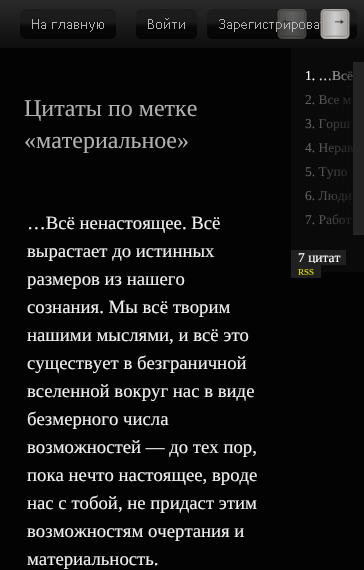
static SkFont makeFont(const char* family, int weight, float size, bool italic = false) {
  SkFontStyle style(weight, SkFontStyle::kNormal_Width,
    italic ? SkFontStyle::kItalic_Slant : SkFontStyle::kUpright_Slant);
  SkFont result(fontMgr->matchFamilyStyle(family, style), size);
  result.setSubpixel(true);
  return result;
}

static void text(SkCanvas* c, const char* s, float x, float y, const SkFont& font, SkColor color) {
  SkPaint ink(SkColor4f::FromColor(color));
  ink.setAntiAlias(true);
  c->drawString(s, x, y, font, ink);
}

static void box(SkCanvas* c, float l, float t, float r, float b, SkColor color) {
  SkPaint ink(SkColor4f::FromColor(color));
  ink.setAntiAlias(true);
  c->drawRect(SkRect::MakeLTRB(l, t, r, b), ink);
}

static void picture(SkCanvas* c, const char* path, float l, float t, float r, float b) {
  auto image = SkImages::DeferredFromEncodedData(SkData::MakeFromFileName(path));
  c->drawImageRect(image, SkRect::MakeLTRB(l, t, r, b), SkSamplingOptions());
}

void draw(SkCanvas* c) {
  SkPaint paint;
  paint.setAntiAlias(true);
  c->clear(0xff030303);
  picture(c, "img_01.png", 0, 0, 364, 48);
  picture(c, "img_02.png", 20, 9, 116, 39);
  picture(c, "img_03.png", 136, 9, 197, 39);
  picture(c, "img_04.png", 207, 9, 357, 39);
  picture(c, "img_05.png", 277, 9, 307, 39);
  picture(c, "img_06.png", 320, 9, 350, 39);
  SkFont face1 = makeFont("Liberation Serif", 400, 24);
  text(c, "Цитаты по метке", 24, 116, face1, 0xffb0b0b0);
  text(c, "«материальное»", 24, 148, face1, 0xffb0b0b0);
  box(c, 291, 48, 364, 62, 0xff0a0a0a);
  box(c, 291, 62, 353, 235, 0xff0a0a0a);
  SkFont face2 = makeFont("Liberation Serif", 400, 13.5f);
  text(c, "1. …Всё", 305, 80, face2, 0xffffffff);
  text(c, "2. Все м", 305, 104, face2, 0xff606060);
  text(c, "3. Горш", 305, 128, face2, 0xff606060);
  text(c, "4. Нерав", 305, 152, face2, 0xff606060);
  text(c, "5. Тупо", 305, 176, face2, 0xff606060);
  text(c, "6. Люди", 305, 200, face2, 0xff606060);
  text(c, "7. Работ", 305, 224, face2, 0xff606060);
  box(c, 353, 62, 364, 235, 0xff242424);
  picture(c, "img_07.png", 318, 71, 353, 225);
  box(c, 291, 235, 364, 272, 0xff0a0a0a);
  box(c, 291, 250, 346, 265, 0xff202020);
  text(c, "7 цитат", 298, 262, face2, 0xffffffff);
  box(c, 291, 263, 321, 278, 0xff202020);
  SkFont face3 = makeFont("Liberation Serif", 400, 9);
  text(c, "RSS", 298, 275, face3, 0xffdddd00);
  SkFont face4 = makeFont("Liberation Serif", 400, 18.75f);
  text(c, "…Всё ненастоящее. Всё", 27, 229, face4, 0xfff0f0f0);
  text(c, "вырастает до истинных", 27, 257, face4, 0xfff0f0f0);
  text(c, "размеров из нашего", 27, 285, face4, 0xfff0f0f0);
  text(c, "сознания. Мы всё творим", 27, 313, face4, 0xfff0f0f0);
  text(c, "нашими мыслями, и всё это", 27, 341, face4, 0xfff0f0f0);
  text(c, "существует в безграничной", 27, 369, face4, 0xfff0f0f0);
  text(c, "вселенной вокруг нас в виде", 27, 397, face4, 0xfff0f0f0);
  text(c, "безмерного числа", 27, 425, face4, 0xfff0f0f0);
  text(c, "возможностей — до тех пор,", 27, 453, face4, 0xfff0f0f0);
  text(c, "пока нечто настоящее, вроде", 27, 481, face4, 0xfff0f0f0);
  text(c, "нас с тобой, не придаст этим", 27, 509, face4, 0xfff0f0f0);
  text(c, "возможностям очертания и", 27, 537, face4, 0xfff0f0f0);
  text(c, "материальность.", 27, 565, face4, 0xfff0f0f0);
}
